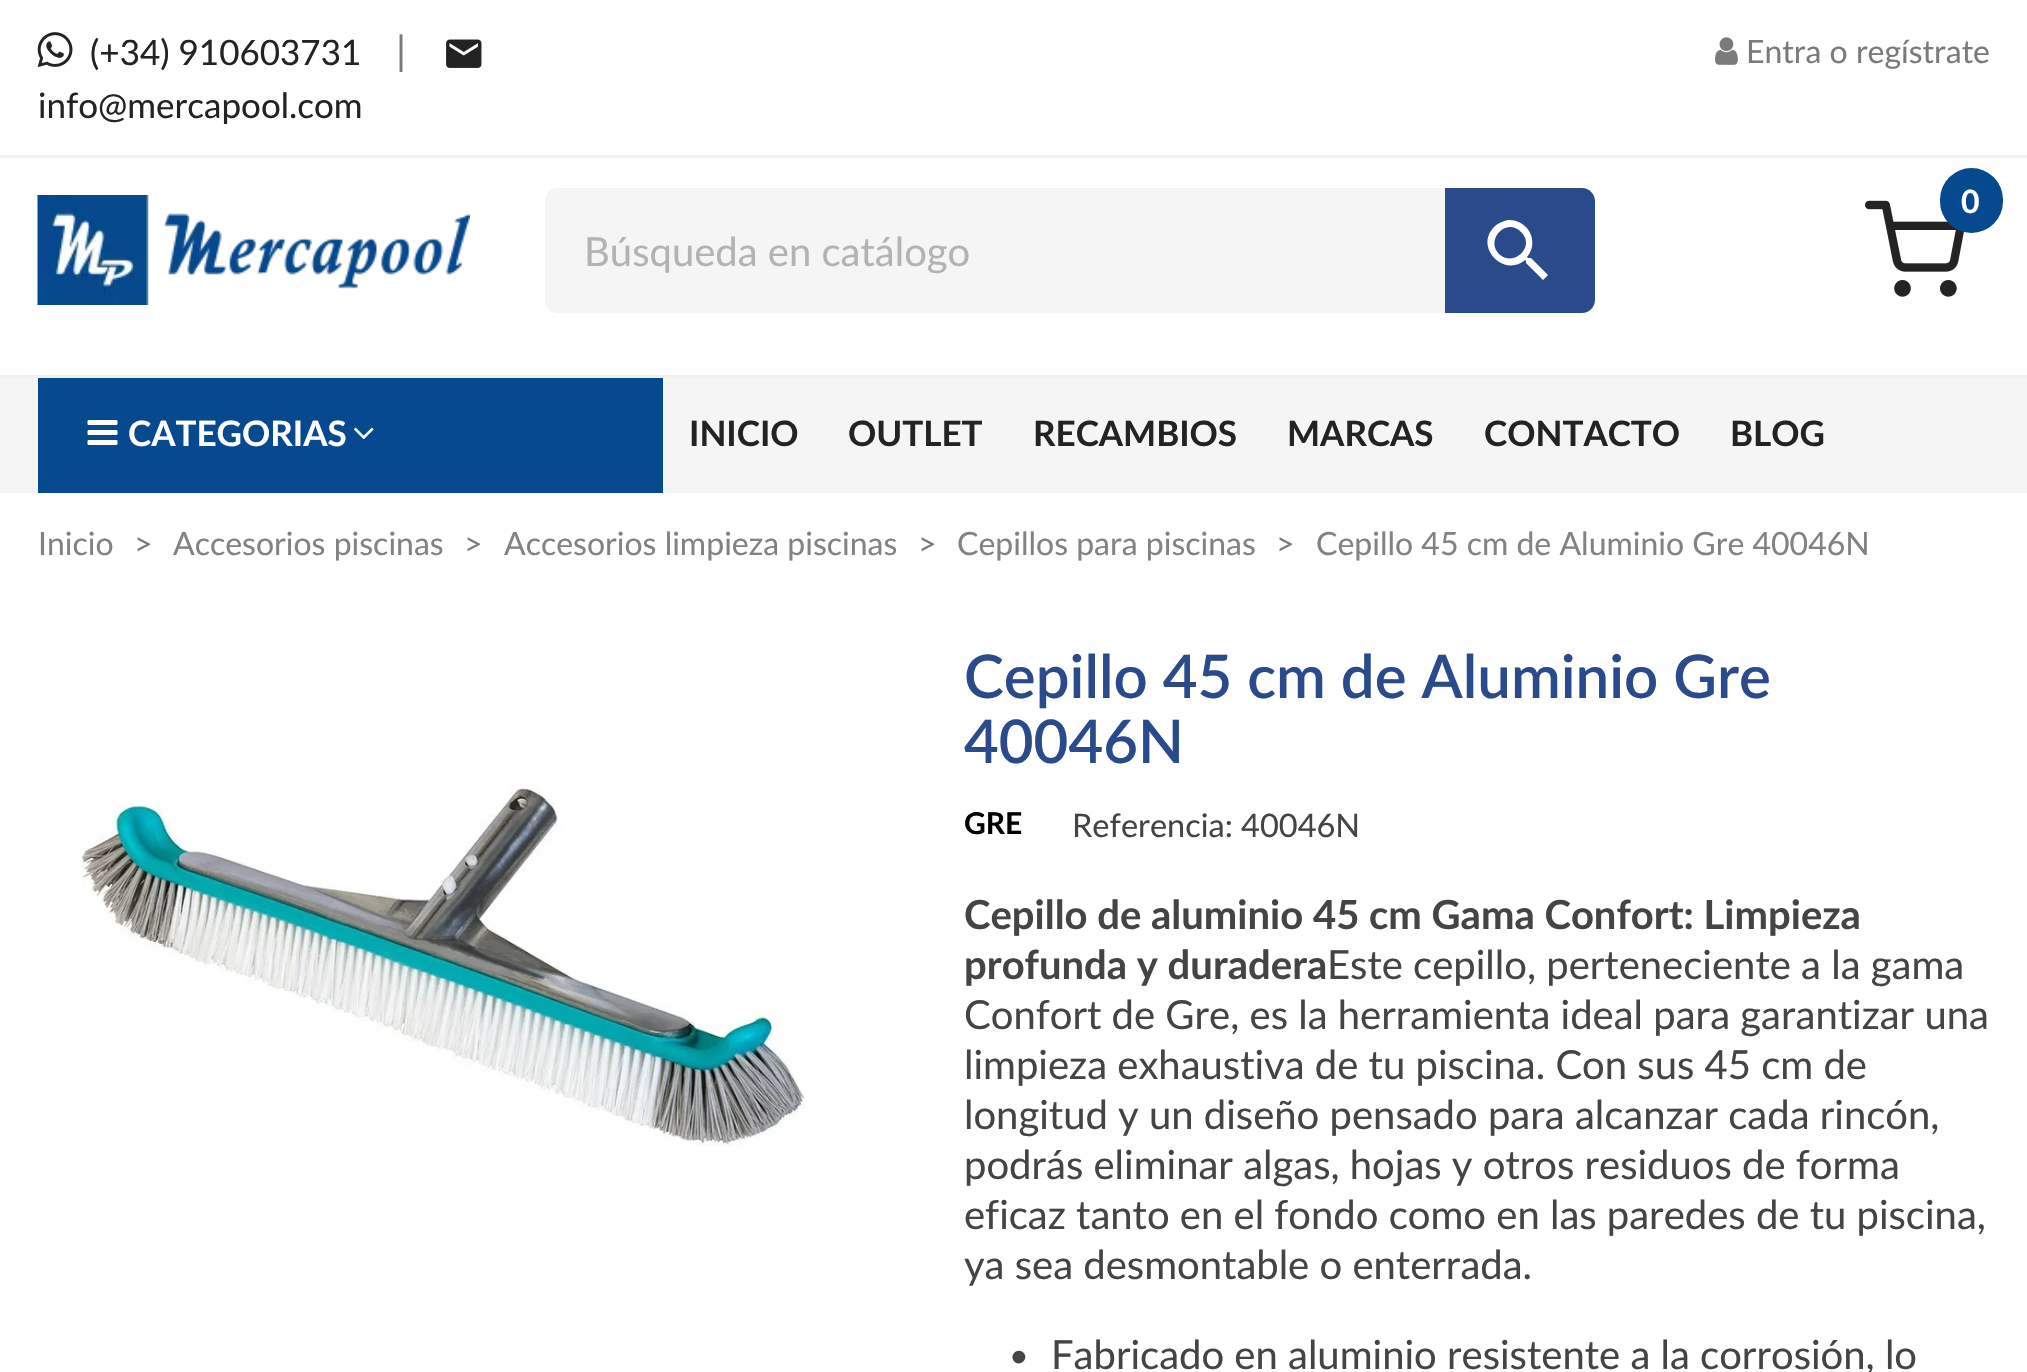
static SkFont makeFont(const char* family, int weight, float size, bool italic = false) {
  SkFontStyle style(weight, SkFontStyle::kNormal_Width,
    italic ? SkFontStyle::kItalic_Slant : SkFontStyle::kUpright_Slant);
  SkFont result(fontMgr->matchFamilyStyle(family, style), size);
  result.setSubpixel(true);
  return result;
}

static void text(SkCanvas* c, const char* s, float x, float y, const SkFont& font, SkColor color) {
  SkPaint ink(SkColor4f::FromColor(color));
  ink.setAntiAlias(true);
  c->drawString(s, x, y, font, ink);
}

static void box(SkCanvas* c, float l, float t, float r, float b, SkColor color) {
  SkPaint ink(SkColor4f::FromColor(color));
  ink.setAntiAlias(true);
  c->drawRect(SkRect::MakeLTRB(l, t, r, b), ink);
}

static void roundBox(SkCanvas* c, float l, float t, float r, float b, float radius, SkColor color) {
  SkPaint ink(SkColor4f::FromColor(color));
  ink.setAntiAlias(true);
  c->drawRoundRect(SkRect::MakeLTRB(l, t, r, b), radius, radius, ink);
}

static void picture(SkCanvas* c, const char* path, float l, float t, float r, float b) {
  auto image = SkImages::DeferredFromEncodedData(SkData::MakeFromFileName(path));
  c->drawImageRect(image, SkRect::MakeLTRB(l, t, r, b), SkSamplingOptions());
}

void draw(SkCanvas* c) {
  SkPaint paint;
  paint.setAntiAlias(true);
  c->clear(0xffffffff);
  box(c, 0, 155, 2027, 158, 0xfff1f1f1);
  picture(c, "img_01.png", 37, 32, 73, 68);
  SkFont face1 = makeFont("Lato", 400, 35);
  text(c, "(+34) 910603731", 90, 65, face1, 0xff232323);
  SkFont face2 = makeFont("Lato", 400, 40);
  text(c, "|", 396, 65, face2, 0xff7a7a7a);
  picture(c, "img_02.png", 446, 39, 482, 68);
  text(c, "info@mercapool.com", 38, 118, face1, 0xff232323);
  picture(c, "img_03.png", 1715, 37, 1738, 65);
  SkFont face3 = makeFont("Lato", 400, 32);
  text(c, "Entra o regístrate", 1746, 63, face3, 0xff7a7a7a);
  box(c, 0, 375, 2027, 378, 0xfff1f1f1);
  picture(c, "img_04.png", 37, 195, 470, 305);
  picture(c, "img_05.png", 1865, 200, 1964, 297);
  roundBox(c, 1940, 168, 2003, 233, 31.5f, 0xff06498f);
  SkFont face4 = makeFont("Lato", 700, 32);
  text(c, "0", 1961, 213, face4, 0xffffffff);
  roundBox(c, 545, 188, 1595, 313, 13, 0xfff5f5f5);
  text(c, "Búsqueda en catálogo", 584, 266, face2, 0xffb3b3b3);
  paint.setColor(0xff2b4a8b);
  c->drawPath(SkPathBuilder().moveTo(1445, 188).lineTo(1582, 188).cubicTo(1589, 188, 1595, 194, 1595, 201).lineTo(1595, 300).cubicTo(1595, 307, 1589, 313, 1582, 313).lineTo(1445, 313).close().detach(), paint);
  paint.setColor(0xffffffff);
  c->drawPath(SkPathBuilder().moveTo(1499, 254).cubicTo(1514, 268, 1536, 246, 1521, 232).cubicTo(1507, 217, 1485, 239, 1499, 254).close().moveTo(1531, 258).lineTo(1548, 275).lineTo(1543, 280).lineTo(1526, 263).lineTo(1526, 261).lineTo(1525, 260).cubicTo(1504, 278, 1474, 247, 1494, 227).cubicTo(1498, 223, 1503, 221, 1508, 220).cubicTo(1528, 219, 1540, 242, 1527, 257).lineTo(1528, 258).close().detach(), paint);
  box(c, 0, 378, 2027, 493, 0xfff5f5f5);
  box(c, 38, 378, 663, 493, 0xff06498f);
  picture(c, "img_06.png", 87, 420, 118, 445);
  SkFont face5 = makeFont("Lato", 700, 35);
  text(c, "CATEGORIAS", 128, 446, face5, 0xffffffff);
  picture(c, "img_07.png", 354, 427, 374, 440);
  text(c, "INICIO", 689, 446, face5, 0xff232323);
  text(c, "OUTLET", 848, 446, face5, 0xff232323);
  text(c, "RECAMBIOS", 1033, 446, face5, 0xff232323);
  text(c, "MARCAS", 1287, 446, face5, 0xff232323);
  text(c, "CONTACTO", 1484, 446, face5, 0xff232323);
  text(c, "BLOG", 1730, 446, face5, 0xff232323);
  text(c, "Inicio", 38, 555, face3, 0xff828282);
  text(c, ">", 134, 555, face3, 0xff7a7a7a);
  text(c, "Accesorios piscinas", 173, 555, face3, 0xff828282);
  text(c, ">", 464, 555, face3, 0xff7a7a7a);
  text(c, "Accesorios limpieza piscinas", 504, 555, face3, 0xff828282);
  text(c, ">", 918, 555, face3, 0xff7a7a7a);
  text(c, "Cepillos para piscinas", 957, 555, face3, 0xff828282);
  text(c, ">", 1276, 555, face3, 0xff7a7a7a);
  text(c, "Cepillo 45 cm de Aluminio Gre 40046N", 1316, 555, face3, 0xff828282);
  picture(c, "img_08.png", 82, 784, 805, 1146);
  SkFont face6 = makeFont("Lato", 600, 60);
  text(c, "Cepillo 45 cm de Aluminio Gre", 964, 698, face6, 0xff2b4a8b);
  text(c, "40046N", 964, 763, face6, 0xff2b4a8b);
  SkFont face7 = makeFont("Lato", 700, 30);
  text(c, "GRE", 964, 834, face7, 0xff000000);
  SkFont face8 = makeFont("Lato", 400, 32.5f);
  text(c, "Referencia: 40046N", 1072, 837, face8, 0xff444444);
  SkFont face9 = makeFont("Lato", 700, 40);
  text(c, "Cepillo de aluminio 45 cm Gama Confort: Limpieza", 964, 929, face9, 0xff444444);
  text(c, "profunda y duradera", 964, 979, face9, 0xff444444);
  text(c, "Este cepillo, perteneciente a la gama", 1327, 979, face2, 0xff444444);
  text(c, "Confort de Gre, es la herramienta ideal para garantizar una", 964, 1029, face2, 0xff444444);
  text(c, "limpieza exhaustiva de tu piscina. Con sus 45 cm de", 964, 1079, face2, 0xff444444);
  text(c, "longitud y un diseño pensado para alcanzar cada rincón,", 964, 1129, face2, 0xff444444);
  text(c, "podrás eliminar algas, hojas y otros residuos de forma", 964, 1179, face2, 0xff444444);
  text(c, "eficaz tanto en el fondo como en las paredes de tu piscina,", 964, 1229, face2, 0xff444444);
  text(c, "ya sea desmontable o enterrada.", 964, 1279, face2, 0xff444444);
  paint.setColor(0xff444444);
  c->drawPath(SkPathBuilder().moveTo(1024.5f, 1354).cubicTo(1028.5f, 1361, 1017.5f, 1367.5f, 1013.5f, 1360.5f).cubicTo(1009, 1353, 1020, 1346.5f, 1024.5f, 1354).close().detach(), paint);
  text(c, "Fabricado en aluminio resistente a la corrosión, lo", 1051, 1369, face2, 0xff444444);
}
